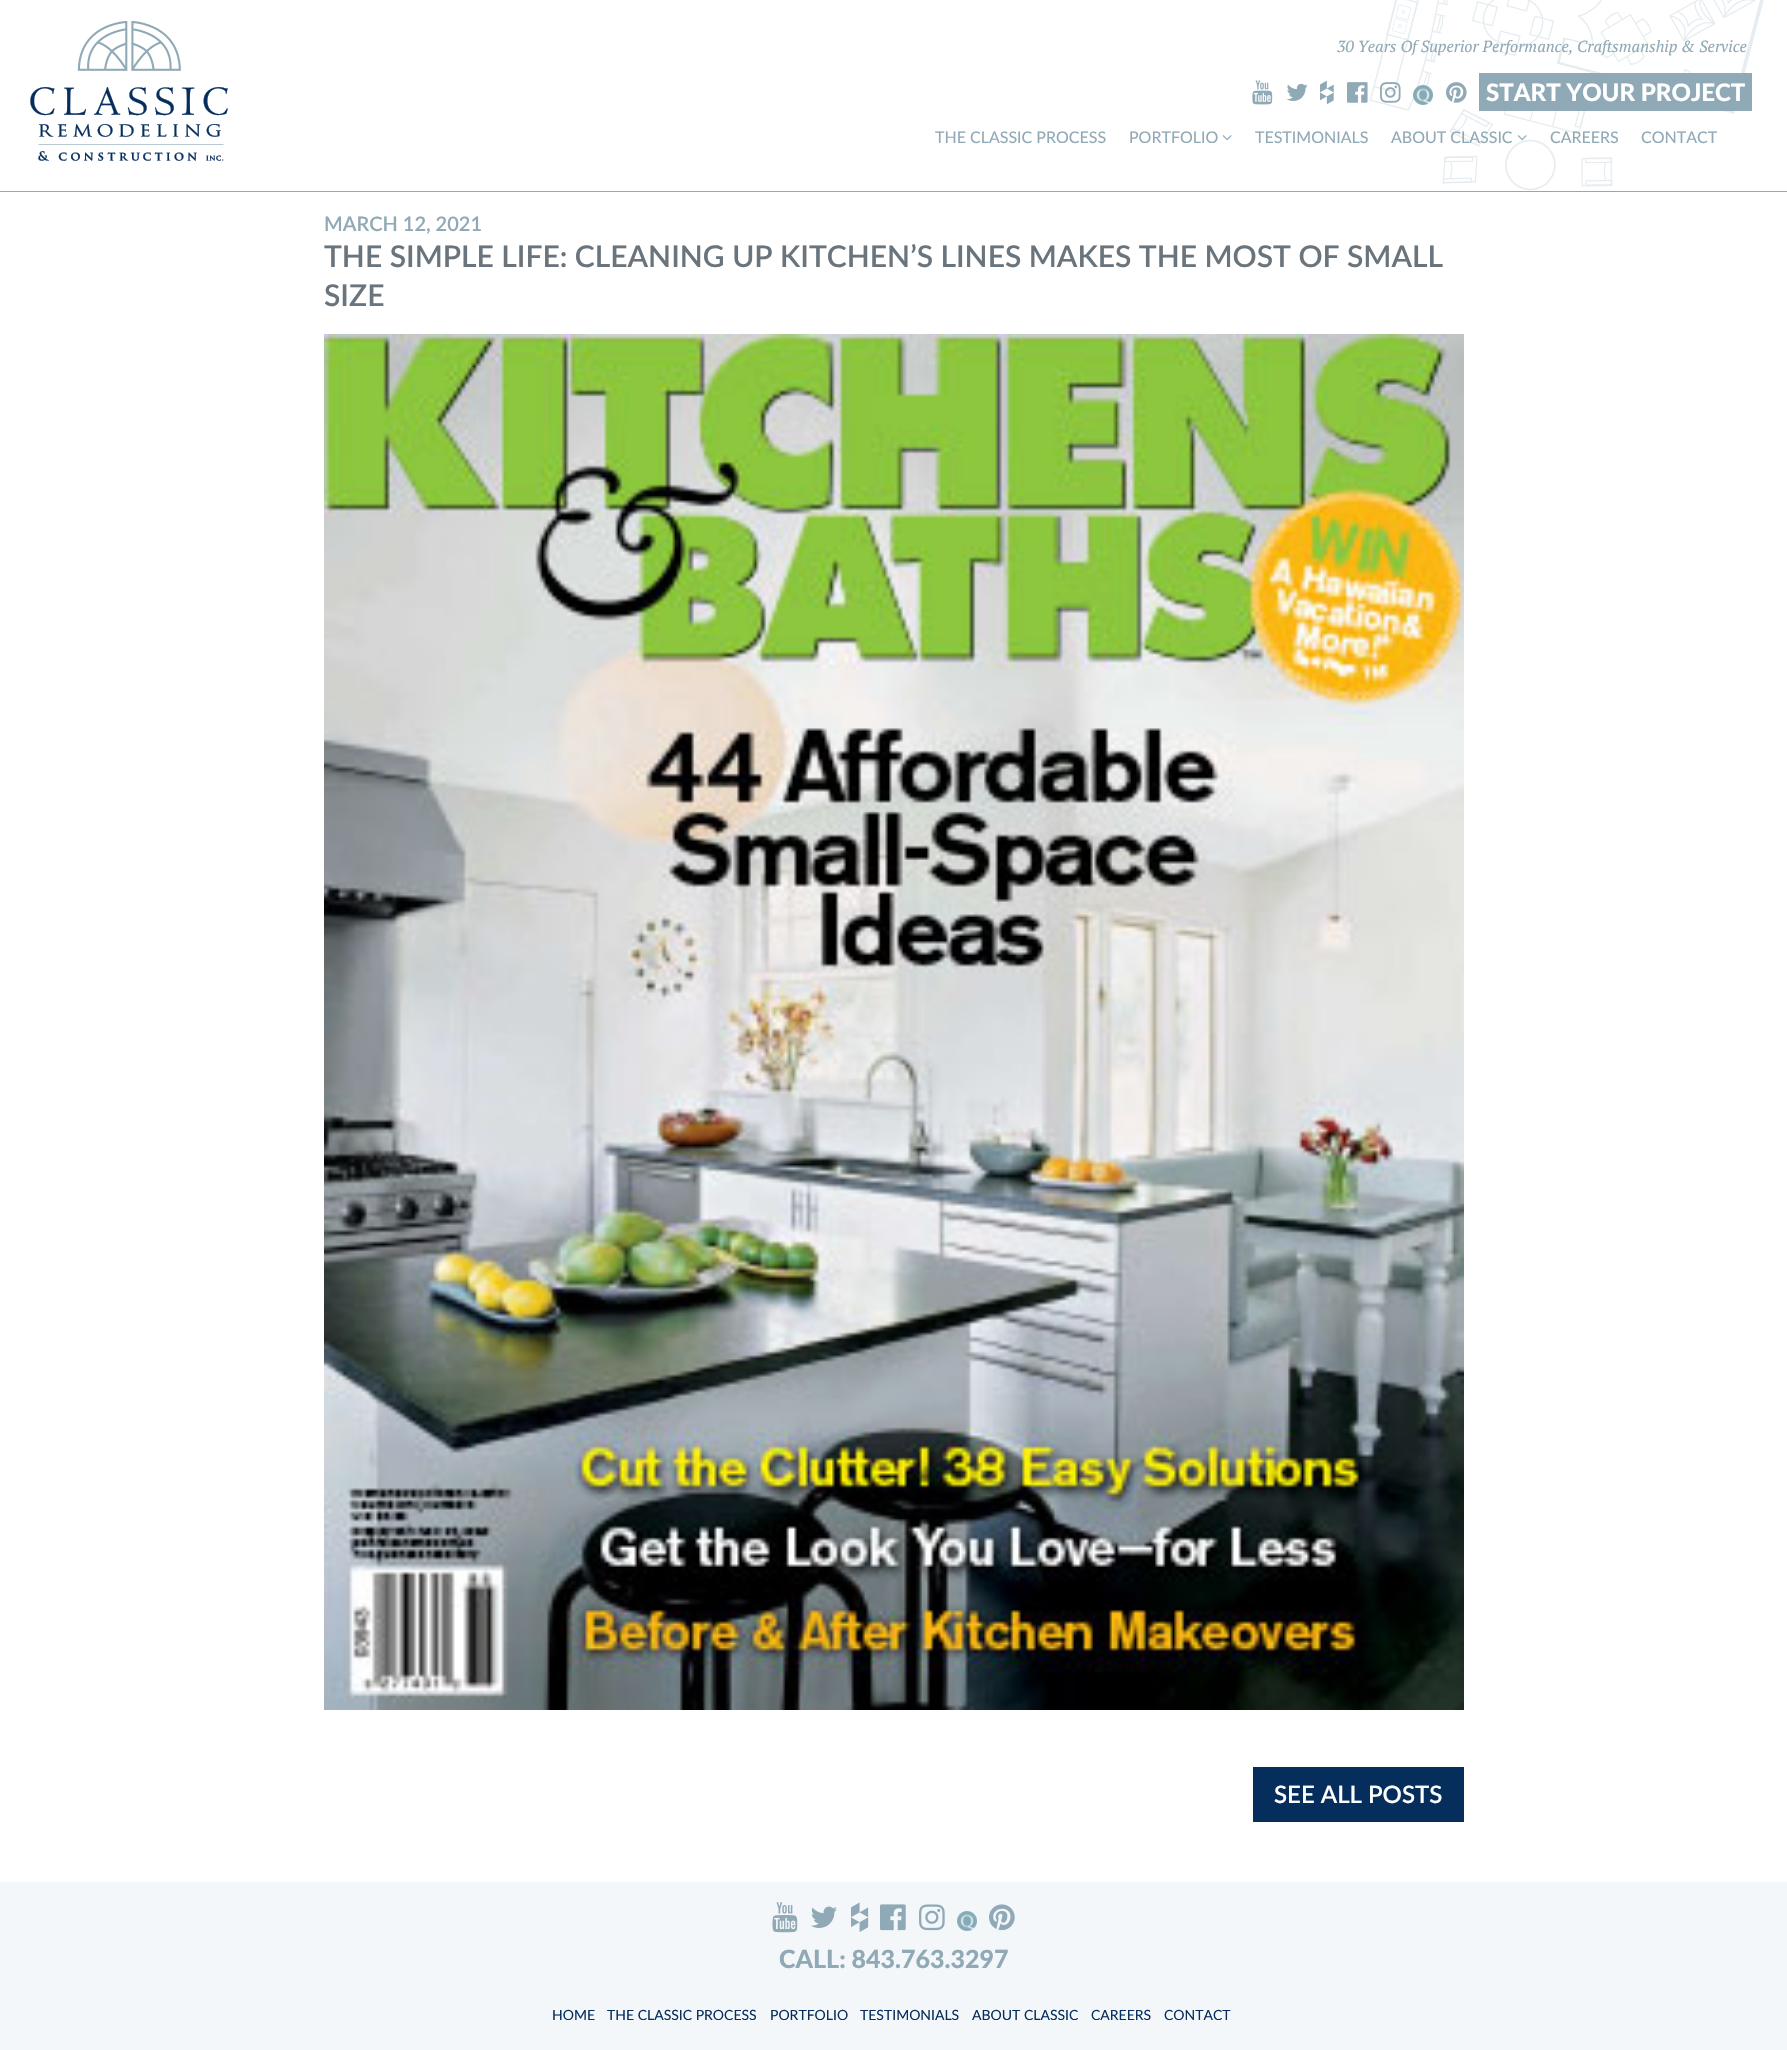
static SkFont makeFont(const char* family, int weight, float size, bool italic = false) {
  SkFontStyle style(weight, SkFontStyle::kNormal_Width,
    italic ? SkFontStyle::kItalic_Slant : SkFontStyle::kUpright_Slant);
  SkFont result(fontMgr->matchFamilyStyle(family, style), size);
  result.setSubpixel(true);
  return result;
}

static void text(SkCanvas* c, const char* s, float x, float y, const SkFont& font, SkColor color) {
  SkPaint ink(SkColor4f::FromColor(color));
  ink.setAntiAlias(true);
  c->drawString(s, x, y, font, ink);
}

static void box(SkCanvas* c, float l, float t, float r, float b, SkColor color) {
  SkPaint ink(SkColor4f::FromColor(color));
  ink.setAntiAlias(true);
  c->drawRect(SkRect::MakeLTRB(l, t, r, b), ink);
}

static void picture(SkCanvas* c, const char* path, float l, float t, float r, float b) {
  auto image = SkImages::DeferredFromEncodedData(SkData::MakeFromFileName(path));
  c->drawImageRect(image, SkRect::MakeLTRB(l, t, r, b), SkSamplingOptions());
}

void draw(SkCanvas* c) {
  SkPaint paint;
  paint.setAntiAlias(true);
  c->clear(0xffffffff);
  picture(c, "img_01.png", 1369, 0, 1764, 191);
  box(c, 0, 191, 1787, 192, 0xff90a9b6);
  picture(c, "img_02.png", 30, 21, 228, 161);
  SkFont face1 = makeFont("PT Serif", 400, 16, true);
  text(c, "30 Years Of Superior Performance, Craftsmanship & Service", 1337, 52, face1, 0xff90a9b6);
  picture(c, "img_03.png", 1252, 80, 1273, 105);
  picture(c, "img_04.png", 1286, 83, 1308, 101);
  picture(c, "img_05.png", 1320, 80, 1334, 105);
  picture(c, "img_06.png", 1347, 82, 1368, 103);
  picture(c, "img_07.png", 1380, 82, 1401, 103);
  picture(c, "img_08.png", 1413, 85, 1433, 105);
  picture(c, "img_09.png", 1446, 82, 1467, 103);
  box(c, 1479, 73, 1752, 111, 0xff90a9b6);
  SkFont face2 = makeFont("Lato", 900, 24);
  text(c, "START YOUR PROJECT", 1486, 101, face2, 0xffffffff);
  SkFont face3 = makeFont("Lato", 400, 16);
  text(c, "THE CLASSIC PROCESS", 935, 143, face3, 0xff90a9b6);
  text(c, "PORTFOLIO", 1129, 143, face3, 0xff90a9b6);
  picture(c, "img_10.png", 1222, 135, 1232, 141);
  text(c, "TESTIMONIALS", 1255, 143, face3, 0xff90a9b6);
  text(c, "ABOUT CLASSIC", 1391, 143, face3, 0xff90a9b6);
  picture(c, "img_11.png", 1517, 135, 1527, 141);
  text(c, "CAREERS", 1550, 143, face3, 0xff90a9b6);
  text(c, "CONTACT", 1641, 143, face3, 0xff90a9b6);
  SkFont face4 = makeFont("Lato", 600, 20);
  text(c, "MARCH 12, 2021", 324, 231, face4, 0xff90a9b6);
  SkFont face5 = makeFont("Lato", 600, 30);
  text(c, "THE SIMPLE LIFE: CLEANING UP KITCHEN’S LINES MAKES THE MOST OF SMALL", 324, 267, face5, 0xff6a747c);
  text(c, "SIZE", 324, 306, face5, 0xff6a747c);
  picture(c, "img_12.png", 324, 334, 1464, 1710);
  box(c, 1253, 1767, 1464, 1822, 0xff062e5d);
  SkFont face6 = makeFont("Lato", 600, 24);
  text(c, "SEE ALL POSTS", 1274, 1803, face6, 0xffffffff);
  box(c, 0, 1882, 1787, 2050, 0xfff4f7f9);
  picture(c, "img_13.png", 772, 1902, 798, 1933);
  picture(c, "img_14.png", 811, 1906, 837, 1928);
  picture(c, "img_15.png", 851, 1902, 869, 1932);
  picture(c, "img_16.png", 880, 1904, 906, 1931);
  picture(c, "img_17.png", 919, 1904, 945, 1931);
  picture(c, "img_18.png", 957, 1911, 977, 1931);
  picture(c, "img_19.png", 989, 1904, 1015, 1931);
  SkFont face7 = makeFont("Lato", 900, 25);
  text(c, "CALL: 843.763.3297", 779, 1968, face7, 0xff90a9b6);
  SkFont face8 = makeFont("Lato", 400, 14);
  text(c, "HOME", 552, 2020, face8, 0xff062e5d);
  text(c, "THE CLASSIC PROCESS", 607, 2020, face8, 0xff062e5d);
  text(c, "PORTFOLIO", 770, 2020, face8, 0xff062e5d);
  text(c, "TESTIMONIALS", 860, 2020, face8, 0xff062e5d);
  text(c, "ABOUT CLASSIC", 972, 2020, face8, 0xff062e5d);
  text(c, "CAREERS", 1091, 2020, face8, 0xff062e5d);
  text(c, "CONTACT", 1164, 2020, face8, 0xff062e5d);
}
